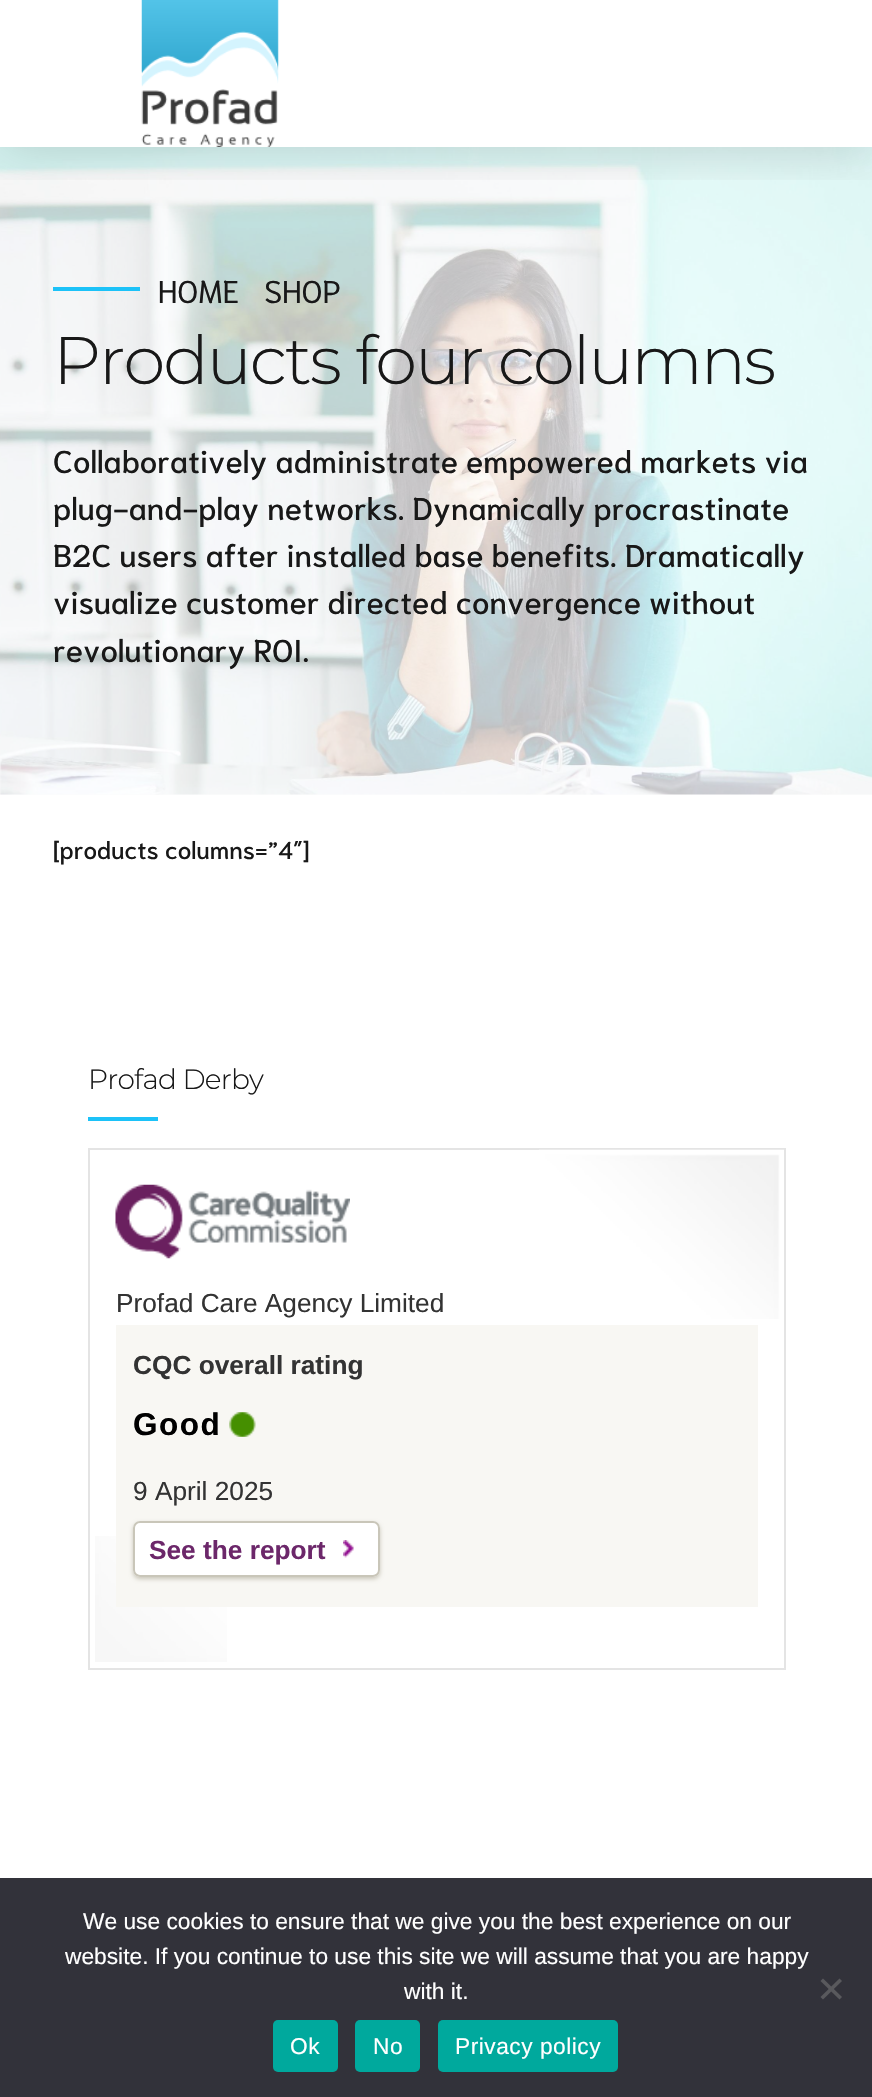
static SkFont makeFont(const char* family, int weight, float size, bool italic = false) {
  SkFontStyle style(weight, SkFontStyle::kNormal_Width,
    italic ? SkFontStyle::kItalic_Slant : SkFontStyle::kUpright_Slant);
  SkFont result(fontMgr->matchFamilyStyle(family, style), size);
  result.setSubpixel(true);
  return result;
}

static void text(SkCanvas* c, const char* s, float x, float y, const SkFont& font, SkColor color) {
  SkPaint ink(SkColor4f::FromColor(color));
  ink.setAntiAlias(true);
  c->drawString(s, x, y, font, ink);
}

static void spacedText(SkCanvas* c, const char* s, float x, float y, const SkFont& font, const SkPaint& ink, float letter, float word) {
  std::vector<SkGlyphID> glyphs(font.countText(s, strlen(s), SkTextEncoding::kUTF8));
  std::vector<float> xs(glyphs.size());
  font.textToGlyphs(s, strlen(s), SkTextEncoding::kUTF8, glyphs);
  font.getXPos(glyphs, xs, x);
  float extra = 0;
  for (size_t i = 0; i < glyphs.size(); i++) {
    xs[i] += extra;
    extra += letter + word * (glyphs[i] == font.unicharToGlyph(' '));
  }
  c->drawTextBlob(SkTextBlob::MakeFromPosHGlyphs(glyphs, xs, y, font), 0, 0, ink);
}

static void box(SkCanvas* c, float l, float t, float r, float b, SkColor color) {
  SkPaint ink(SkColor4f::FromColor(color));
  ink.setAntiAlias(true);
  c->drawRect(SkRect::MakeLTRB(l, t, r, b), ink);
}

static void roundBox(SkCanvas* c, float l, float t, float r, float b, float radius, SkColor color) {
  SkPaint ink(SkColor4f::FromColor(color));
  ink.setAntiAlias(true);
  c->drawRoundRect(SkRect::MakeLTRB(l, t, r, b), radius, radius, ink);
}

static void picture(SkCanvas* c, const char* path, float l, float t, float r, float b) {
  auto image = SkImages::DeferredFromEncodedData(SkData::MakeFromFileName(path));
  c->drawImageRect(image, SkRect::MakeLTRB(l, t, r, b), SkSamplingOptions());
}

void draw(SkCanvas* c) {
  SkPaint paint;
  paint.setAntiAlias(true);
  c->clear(0xffffffff);
  box(c, 0, 794, 872, 795, 0xfffcfcfc);
  picture(c, "img_02.png", 0, 147, 872, 795);
  c->save();
  c->clipRect(SkRect::MakeLTRB(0, 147, 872, 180));
  paint.setColor(0x26000000);
  paint.setMaskFilter(SkMaskFilter::MakeBlur(kNormal_SkBlurStyle, 26));
  c->drawRect(SkRect::MakeLTRB(0, 4, 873, 151), paint);
  paint.setMaskFilter(nullptr);
  c->restore();
  picture(c, "img_01.png", 141, 0, 279, 147);
  box(c, 53, 287, 140, 291, 0xff1cc2f8);
  SkFont face1 = makeFont("Niramit", 400, 31.5f);
  text(c, "HOME", 158, 303, face1, 0xff181818);
  text(c, "SHOP", 264, 303, face1, 0xff181818);
  SkFont face2 = makeFont("Montserrat", 300, 67.25f);
  paint.setColor(0xff181818);
  spacedText(c, "Products four columns", 53, 384, face2, paint, -2, 0);
  SkFont face3 = makeFont("Niramit", 500, 31.5f);
  text(c, "Collaboratively administrate empowered markets via", 53, 473, face3, 0xff181818);
  text(c, "plug-and-play networks. Dynamically procrastinate", 53, 520, face3, 0xff181818);
  text(c, "B2C users after installed base benefits. Dramatically", 53, 567, face3, 0xff181818);
  text(c, "visualize customer directed convergence without", 53, 614, face3, 0xff181818);
  text(c, "revolutionary ROI.", 53, 662, face3, 0xff181818);
  SkFont face4 = makeFont("Niramit", 500, 24.5f);
  text(c, "[products columns=”4″]", 53, 859, face4, 0xff181818);
  SkFont face5 = makeFont("Montserrat", 300, 28);
  spacedText(c, "Profad Derby", 88, 1089, face5, paint, -0.8f, 0);
  box(c, 88, 1117, 158, 1121, 0xff1cc2f8);
  picture(c, "img_03.png", 95, 1536, 227, 1662);
  paint.setStyle(SkPaint::kStroke_Style);
  paint.setStrokeWidth(2);
  paint.setColor(0xffe4e4e4);
  c->drawRect(SkRect::MakeLTRB(89, 1149, 785, 1669), paint);
  picture(c, "img_04.png", 539, 1149, 784, 1319);
  picture(c, "img_05.png", 115, 1184, 350, 1259);
  SkFont face6 = makeFont("Liberation Sans", 400, 26.25f);
  text(c, "Profad Care Agency Limited", 116, 1312, face6, 0xff333333);
  box(c, 116, 1325, 758, 1607, 0xfff8f7f3);
  SkFont face7 = makeFont("Liberation Sans", 700, 26.25f);
  text(c, "CQC overall rating", 133, 1374, face7, 0xff333333);
  SkFont face8 = makeFont("Liberation Sans", 700, 31.5f);
  paint.setStyle(SkPaint::kFill_Style);
  paint.setColor(0xff000000);
  spacedText(c, "Good", 133, 1435, face8, paint, 1.5f, 0);
  picture(c, "img_06.png", 229, 1412, 256, 1437);
  text(c, "9 April 2025", 133, 1500, face6, 0xff333333);
  paint.setColor(0xffc9c6b9);
  paint.setMaskFilter(SkMaskFilter::MakeBlur(kNormal_SkBlurStyle, 2));
  c->drawRoundRect(SkRect::MakeLTRB(133, 1523, 380, 1579), 7, 7, paint);
  paint.setMaskFilter(nullptr);
  roundBox(c, 133, 1521, 380, 1577, 7, 0xffffffff);
  picture(c, "img_07.png", 343, 1540, 354, 1558);
  paint.setStyle(SkPaint::kStroke_Style);
  c->drawRoundRect(SkRect::MakeLTRB(134, 1522, 379, 1576), 6, 6, paint);
  text(c, "See the report", 149, 1559, face7, 0xff6c276a);
  box(c, 0, 1878, 872, 2097, 0xff32323a);
  SkFont face9 = makeFont("Liberation Sans", 400, 22.75f);
  text(c, "We use cookies to ensure that we give you the best experience on our", 83, 1929, face9, 0xffffffff);
  text(c, "website. If you continue to use this site we will assume that you are happy", 65, 1964, face9, 0xffffffff);
  text(c, "with it.", 404, 1999, face9, 0xffffffff);
  paint.setStyle(SkPaint::kFill_Style);
  paint.setColor(0xff59595d);
  c->drawPath(SkPathBuilder().moveTo(839.5f, 1978.5f).lineTo(842, 1981).lineTo(823, 1999.5f).lineTo(820.5f, 1997).close().detach(), paint);
  c->drawPath(SkPathBuilder().moveTo(820.5f, 1981).lineTo(823, 1978.5f).lineTo(842, 1997).lineTo(839.5f, 1999.5f).close().detach(), paint);
  roundBox(c, 273, 2020, 338, 2072, 5, 0xff00a99d);
  paint.setColor(0xffffffff);
  spacedText(c, "Ok", 290, 2054, face9, paint, 0.5f, 0);
  roundBox(c, 355, 2020, 420, 2072, 5, 0xff00a99d);
  spacedText(c, "No", 373, 2054, face9, paint, 0.5f, 0);
  roundBox(c, 438, 2020, 618, 2072, 5, 0xff00a99d);
  spacedText(c, "Privacy policy", 455, 2054, face9, paint, 0.5f, 0);
}
